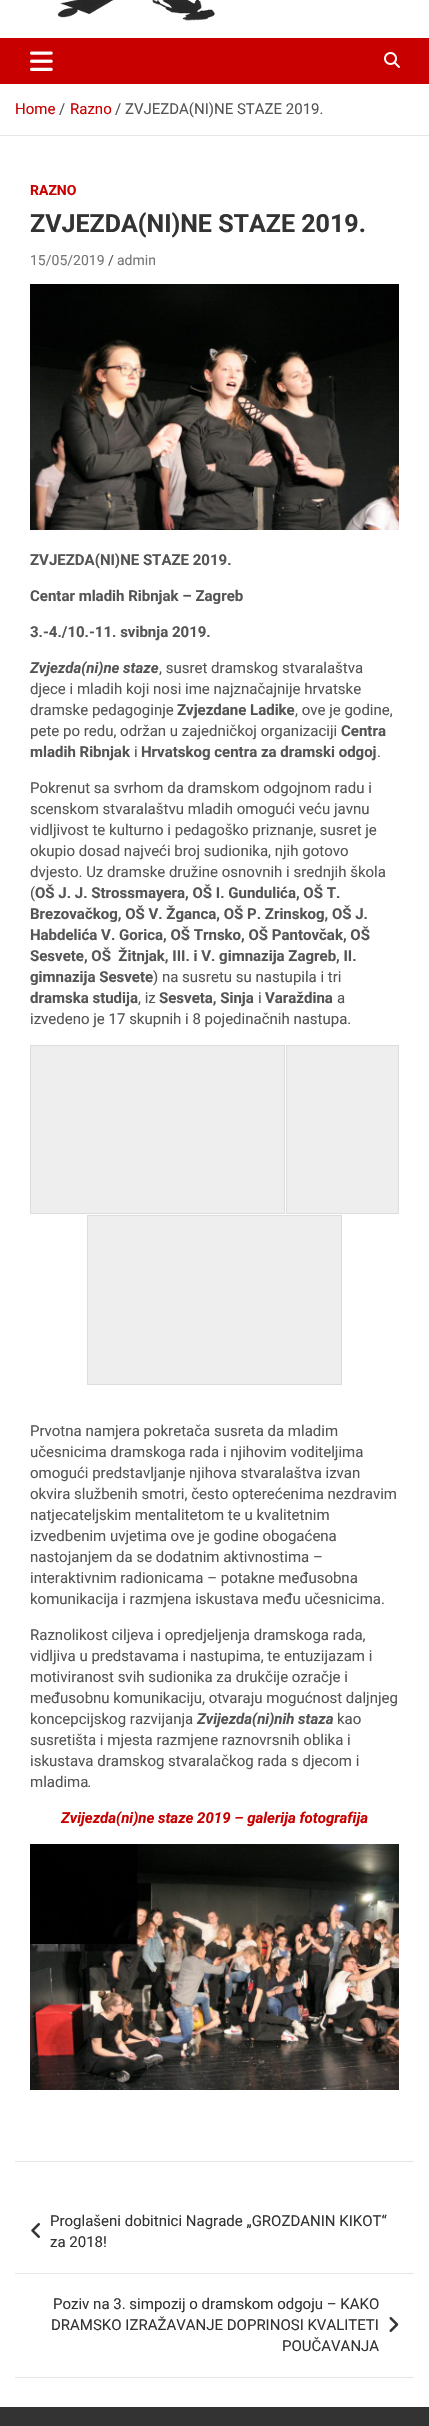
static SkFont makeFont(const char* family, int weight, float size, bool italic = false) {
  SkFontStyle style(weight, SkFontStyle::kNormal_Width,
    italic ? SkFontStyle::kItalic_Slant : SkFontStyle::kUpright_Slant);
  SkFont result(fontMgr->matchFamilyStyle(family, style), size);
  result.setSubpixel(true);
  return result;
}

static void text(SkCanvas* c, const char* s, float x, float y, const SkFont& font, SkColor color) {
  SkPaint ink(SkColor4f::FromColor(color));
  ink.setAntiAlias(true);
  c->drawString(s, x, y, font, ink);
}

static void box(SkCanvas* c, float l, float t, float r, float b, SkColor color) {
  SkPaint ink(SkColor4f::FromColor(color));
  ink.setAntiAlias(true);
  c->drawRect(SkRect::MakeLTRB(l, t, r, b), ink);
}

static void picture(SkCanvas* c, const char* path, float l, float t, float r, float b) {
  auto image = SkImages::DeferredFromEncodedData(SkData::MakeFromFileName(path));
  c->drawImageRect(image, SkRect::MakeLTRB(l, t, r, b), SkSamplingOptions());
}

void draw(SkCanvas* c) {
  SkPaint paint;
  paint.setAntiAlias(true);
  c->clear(0xffffffff);
  picture(c, "img_01.png", 57, 0, 215, 21);
  box(c, 0, 38, 429, 84, 0xffc80000);
  picture(c, "img_02.png", 30, 51, 53, 71);
  picture(c, "img_03.png", 384, 52, 400, 68);
  box(c, 0, 135, 429, 136, 0xffe6e6e6);
  SkFont face1 = makeFont("Roboto", 400, 15);
  text(c, "Home", 15, 114, face1, 0xffc80000);
  text(c, "/", 59, 114, face1, 0xff555555);
  text(c, "Razno", 70, 114, face1, 0xffc80000);
  text(c, "/ ZVJEZDA(NI)NE STAZE 2019.", 115, 114, face1, 0xff555555);
  c->save();
  c->clipRect(SkRect::MakeLTRB(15, 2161, 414, 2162));
  paint.setColor(0x1a000000);
  paint.setMaskFilter(SkMaskFilter::MakeBlur(kNormal_SkBlurStyle, 0.5f));
  c->drawRect(SkRect::MakeLTRB(15, 167, 414, 2162), paint);
  paint.setMaskFilter(nullptr);
  c->restore();
  SkFont face2 = makeFont("Roboto", 700, 14);
  text(c, "RAZNO", 30, 195, face2, 0xffc80000);
  SkFont face3 = makeFont("Roboto", 700, 25);
  text(c, "ZVJEZDA(NI)NE STAZE 2019.", 30, 232, face3, 0xff333333);
  SkFont face4 = makeFont("Roboto", 400, 14);
  text(c, "15/05/2019", 30, 265, face4, 0xff777777);
  text(c, "/", 108, 265, face4, 0xff555555);
  text(c, "admin", 117, 265, face4, 0xff777777);
  picture(c, "img_04.png", 30, 284, 399, 530);
  SkFont face5 = makeFont("Roboto", 700, 15);
  text(c, "ZVJEZDA(NI)NE STAZE 2019.", 30, 565, face5, 0xff555555);
  text(c, "Centar mladih Ribnjak – Zagreb", 30, 601, face5, 0xff555555);
  text(c, "3.-4./10.-11. svibnja 2019.", 30, 637, face5, 0xff555555);
  SkFont face6 = makeFont("Roboto", 700, 15, true);
  text(c, "Zvjezda(ni)ne staze", 30, 673, face6, 0xff555555);
  text(c, ", susret dramskog stvaralaštva", 159, 673, face1, 0xff555555);
  text(c, "djece i mladih koji nosi ime najznačajnije hrvatske", 30, 694, face1, 0xff555555);
  text(c, "dramske pedagoginje", 30, 715, face1, 0xff555555);
  text(c, "Zvjezdane Ladike", 177, 715, face5, 0xff555555);
  text(c, ", ove je godine,", 295, 715, face1, 0xff555555);
  text(c, "pete po redu, održan u zajedničkoj organizaciji", 30, 736, face1, 0xff555555);
  text(c, "Centra", 341, 736, face5, 0xff555555);
  text(c, "mladih Ribnjak", 30, 757, face5, 0xff555555);
  text(c, "i", 134, 757, face1, 0xff555555);
  text(c, "Hrvatskog centra za dramski odgoj", 141, 757, face5, 0xff555555);
  text(c, ".", 377, 757, face1, 0xff555555);
  text(c, "Pokrenut sa svrhom da dramskom odgojnom radu i", 30, 793, face1, 0xff555555);
  text(c, "scenskom stvaralaštvu mladih omogući veću javnu", 30, 814, face1, 0xff555555);
  text(c, "vidljivost te kulturno i pedagoško priznanje, susret je", 30, 835, face1, 0xff555555);
  text(c, "okupio dosad najveći broj sudionika, njih gotovo", 30, 856, face1, 0xff555555);
  text(c, "dvjesto. Uz dramske družine osnovnih i srednjih škola", 30, 877, face1, 0xff555555);
  text(c, "(", 30, 898, face1, 0xff555555);
  text(c, "OŠ J. J. Strossmayera, OŠ I. Gundulića, OŠ T.", 35, 898, face5, 0xff555555);
  text(c, "Brezovačkog, OŠ V. Žganca, OŠ P. Zrinskog, OŠ J.", 30, 919, face5, 0xff555555);
  text(c, "Habdelića V. Gorica, OŠ Trnsko, OŠ Pantovčak, OŠ", 30, 940, face5, 0xff555555);
  text(c, "Sesvete, OŠ  Žitnjak, III. i V. gimnazija Zagreb, II.", 30, 961, face5, 0xff555555);
  text(c, "gimnazija Sesvete", 30, 982, face5, 0xff555555);
  text(c, ") na susretu su nastupila i tri", 153, 982, face1, 0xff555555);
  text(c, "dramska studija", 30, 1003, face5, 0xff555555);
  text(c, ", iz", 138, 1003, face1, 0xff555555);
  text(c, "Sesveta, Sinja", 159, 1003, face5, 0xff555555);
  text(c, "i", 258, 1003, face1, 0xff555555);
  text(c, "Varaždina", 265, 1003, face5, 0xff555555);
  text(c, "a", 337, 1003, face1, 0xff555555);
  text(c, "izvedeno je 17 skupnih i 8 pojedinačnih nastupa.", 30, 1024, face1, 0xff555555);
  paint.setColor(0xffeeeeee);
  c->drawRect(SkRect::MakeLTRB(30.5f, 1045.5f, 284.5f, 1213.5f), paint);
  paint.setStyle(SkPaint::kStroke_Style);
  paint.setStrokeWidth(1);
  paint.setColor(0xffdddddd);
  c->drawRect(SkRect::MakeLTRB(30.5f, 1045.5f, 284.5f, 1213.5f), paint);
  paint.setStyle(SkPaint::kFill_Style);
  paint.setColor(0xffeeeeee);
  c->drawRect(SkRect::MakeLTRB(286.5f, 1045.5f, 398.5f, 1213.5f), paint);
  paint.setStyle(SkPaint::kStroke_Style);
  paint.setColor(0xffdddddd);
  c->drawRect(SkRect::MakeLTRB(286.5f, 1045.5f, 398.5f, 1213.5f), paint);
  paint.setStyle(SkPaint::kFill_Style);
  paint.setColor(0xffeeeeee);
  c->drawRect(SkRect::MakeLTRB(87.5f, 1215.5f, 341.5f, 1384.5f), paint);
  paint.setStyle(SkPaint::kStroke_Style);
  paint.setColor(0xffdddddd);
  c->drawRect(SkRect::MakeLTRB(87.5f, 1215.5f, 341.5f, 1384.5f), paint);
  text(c, "Prvotna namjera pokretača susreta da mladim", 30, 1436, face1, 0xff555555);
  text(c, "učesnicima dramskoga rada i njihovim voditeljima", 30, 1457, face1, 0xff555555);
  text(c, "omogući predstavljanje njihova stvaralaštva izvan", 30, 1478, face1, 0xff555555);
  text(c, "okvira službenih smotri, često opterećenima nezdravim", 30, 1499, face1, 0xff555555);
  text(c, "natjecateljskim mentalitetom te u kvalitetnim", 30, 1520, face1, 0xff555555);
  text(c, "izvedbenim uvjetima ove je godine obogaćena", 30, 1541, face1, 0xff555555);
  text(c, "nastojanjem da se dodatnim aktivnostima –", 30, 1562, face1, 0xff555555);
  text(c, "interaktivnim radionicama – potakne međusobna", 30, 1583, face1, 0xff555555);
  text(c, "komunikacija i razmjena iskustava među učesnicima.", 30, 1604, face1, 0xff555555);
  text(c, "Raznolikost ciljeva i opredjeljenja dramskoga rada,", 30, 1640, face1, 0xff555555);
  text(c, "vidljiva u predstavama i nastupima, te entuzijazam i", 30, 1661, face1, 0xff555555);
  text(c, "motiviranost svih sudionika za drukčije ozračje i", 30, 1682, face1, 0xff555555);
  text(c, "međusobnu komunikaciju, otvaraju mogućnost daljnjeg", 30, 1703, face1, 0xff555555);
  text(c, "koncepcijskog razvijanja", 30, 1724, face1, 0xff555555);
  text(c, "Zvijezda(ni)nih staza", 197, 1724, face6, 0xff555555);
  text(c, "kao", 337, 1724, face1, 0xff555555);
  text(c, "susretišta i mjesta razmjene raznovrsnih oblika i", 30, 1745, face1, 0xff555555);
  text(c, "iskustava dramskog stvaralačkog rada s djecom i", 30, 1766, face1, 0xff555555);
  text(c, "mladima", 30, 1787, face1, 0xff555555);
  SkFont face7 = makeFont("Roboto", 400, 15, true);
  text(c, ".", 88, 1787, face7, 0xff555555);
  text(c, "Zvijezda(ni)ne staze 2019 – galerija fotografija", 61, 1823, face6, 0xffc80000);
  picture(c, "img_05.png", 30, 1844, 399, 2090);
  c->save();
  c->clipRect(SkRect::MakeLTRB(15, 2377, 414, 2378));
  paint.setStyle(SkPaint::kFill_Style);
  paint.setColor(0x1a000000);
  paint.setMaskFilter(SkMaskFilter::MakeBlur(kNormal_SkBlurStyle, 0.5f));
  c->drawRect(SkRect::MakeLTRB(15, 2192, 414, 2378), paint);
  paint.setMaskFilter(nullptr);
  c->restore();
  box(c, 15, 2273, 414, 2274, 0xffe6e6e6);
  picture(c, "img_06.png", 31, 2223, 40, 2238);
  text(c, "Proglašeni dobitnici Nagrade „GROZDANIN KIKOT“", 50, 2226, face1, 0xff333333);
  text(c, "za 2018!", 50, 2247, face1, 0xff333333);
  text(c, "Poziv na 3. simpozij o dramskom odgoju – KAKO", 53, 2309, face1, 0xff333333);
  text(c, "DRAMSKO IZRAŽAVANJE DOPRINOSI KVALITETI", 51, 2330, face1, 0xff333333);
  picture(c, "img_07.png", 389, 2317, 399, 2332);
  text(c, "POUČAVANJA", 282, 2351, face1, 0xff333333);
  box(c, 0, 2407, 429, 2426, 0xff333333);
}
